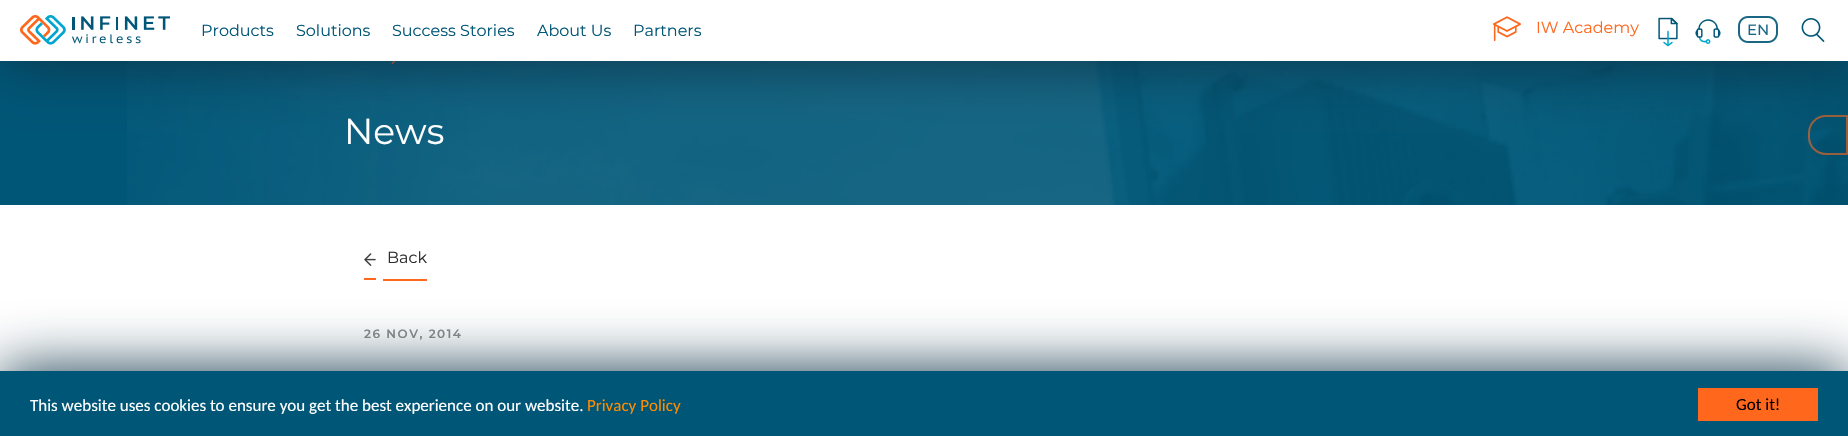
static SkFont makeFont(const char* family, int weight, float size, bool italic = false) {
  SkFontStyle style(weight, SkFontStyle::kNormal_Width,
    italic ? SkFontStyle::kItalic_Slant : SkFontStyle::kUpright_Slant);
  SkFont result(fontMgr->matchFamilyStyle(family, style), size);
  result.setSubpixel(true);
  return result;
}

static void text(SkCanvas* c, const char* s, float x, float y, const SkFont& font, SkColor color) {
  SkPaint ink(SkColor4f::FromColor(color));
  ink.setAntiAlias(true);
  c->drawString(s, x, y, font, ink);
}

static void spacedText(SkCanvas* c, const char* s, float x, float y, const SkFont& font, const SkPaint& ink, float letter, float word) {
  std::vector<SkGlyphID> glyphs(font.countText(s, strlen(s), SkTextEncoding::kUTF8));
  std::vector<float> xs(glyphs.size());
  font.textToGlyphs(s, strlen(s), SkTextEncoding::kUTF8, glyphs);
  font.getXPos(glyphs, xs, x);
  float extra = 0;
  for (size_t i = 0; i < glyphs.size(); i++) {
    xs[i] += extra;
    extra += letter + word * (glyphs[i] == font.unicharToGlyph(' '));
  }
  c->drawTextBlob(SkTextBlob::MakeFromPosHGlyphs(glyphs, xs, y, font), 0, 0, ink);
}

static void box(SkCanvas* c, float l, float t, float r, float b, SkColor color) {
  SkPaint ink(SkColor4f::FromColor(color));
  ink.setAntiAlias(true);
  c->drawRect(SkRect::MakeLTRB(l, t, r, b), ink);
}

static void picture(SkCanvas* c, const char* path, float l, float t, float r, float b) {
  auto image = SkImages::DeferredFromEncodedData(SkData::MakeFromFileName(path));
  c->drawImageRect(image, SkRect::MakeLTRB(l, t, r, b), SkSamplingOptions());
}

void draw(SkCanvas* c) {
  SkPaint paint;
  paint.setAntiAlias(true);
  c->clear(0xffffffff);
  box(c, 0, 61, 1848, 205, 0xff005677);
  picture(c, "img_07.png", 127, 61, 1848, 205);
  picture(c, "img_08.png", 391, 61, 396, 64);
  paint.setStyle(SkPaint::kStroke_Style);
  paint.setStrokeWidth(2);
  paint.setColor(0x99ff671d);
  c->drawPath(SkPathBuilder().moveTo(1826, 116).lineTo(1847, 116).lineTo(1847, 154).lineTo(1826, 154).cubicTo(1816.5f, 154, 1809, 146.5f, 1809, 137).lineTo(1809, 133).cubicTo(1809, 123.5f, 1816.5f, 116, 1826, 116).close().detach(), paint);
  paint.setStyle(SkPaint::kFill_Style);
  paint.setColor(0xff0c3246);
  paint.setMaskFilter(SkMaskFilter::MakeBlur(kNormal_SkBlurStyle, 30));
  c->drawRect(SkRect::MakeLTRB(0, 0, 1848, 61), paint);
  paint.setMaskFilter(nullptr);
  box(c, 0, 0, 1848, 61, 0xffffffff);
  picture(c, "img_01.png", 20, 15, 170, 45);
  SkFont face1 = makeFont("Montserrat", 400, 16);
  text(c, "Products", 201, 36, face1, 0xff005677);
  text(c, "Solutions", 296, 36, face1, 0xff005677);
  text(c, "Success Stories", 392, 36, face1, 0xff005677);
  text(c, "About Us", 537, 36, face1, 0xff005677);
  text(c, "Partners", 633, 36, face1, 0xff005677);
  picture(c, "img_02.png", 1493, 16, 1521, 42);
  text(c, "IW Academy", 1536, 33, face1, 0xffff671d);
  picture(c, "img_03.png", 1658, 17, 1678, 47);
  picture(c, "img_04.png", 1695, 19, 1721, 44);
  picture(c, "img_05.png", 1738, 16, 1778, 43);
  picture(c, "img_06.png", 1801, 18, 1825, 42);
  SkFont face2 = makeFont("Montserrat", 400, 36);
  text(c, "News", 344, 144, face2, 0xffffffff);
  picture(c, "img_09.png", 364, 253, 376, 266);
  text(c, "Back", 387, 263, face1, 0xff2c2c2c);
  box(c, 364, 278, 376, 280, 0xffff671d);
  box(c, 383, 279, 427, 281, 0xffff671d);
  SkFont face3 = makeFont("Montserrat", 600, 12);
  paint.setColor(0xff8c8c8c);
  spacedText(c, "26 NOV, 2014", 364, 338, face3, paint, 1.5f, 0);
  paint.setColor(0xff0c3246);
  paint.setMaskFilter(SkMaskFilter::MakeBlur(kNormal_SkBlurStyle, 30));
  c->drawRect(SkRect::MakeLTRB(0, 371, 1848, 436), paint);
  paint.setMaskFilter(nullptr);
  box(c, 0, 371, 1848, 436, 0xff005677);
  SkFont face4 = makeFont("Carlito", 400, 17);
  text(c, "This website uses cookies to ensure you get the best experience on our website.", 30, 411, face4, 0xffffffff);
  text(c, "Privacy Policy", 587, 411, face4, 0xffff8b00);
  box(c, 1698, 388, 1818, 421, 0xffff671d);
  text(c, "Got it!", 1736, 410, face4, 0xff000000);
}
